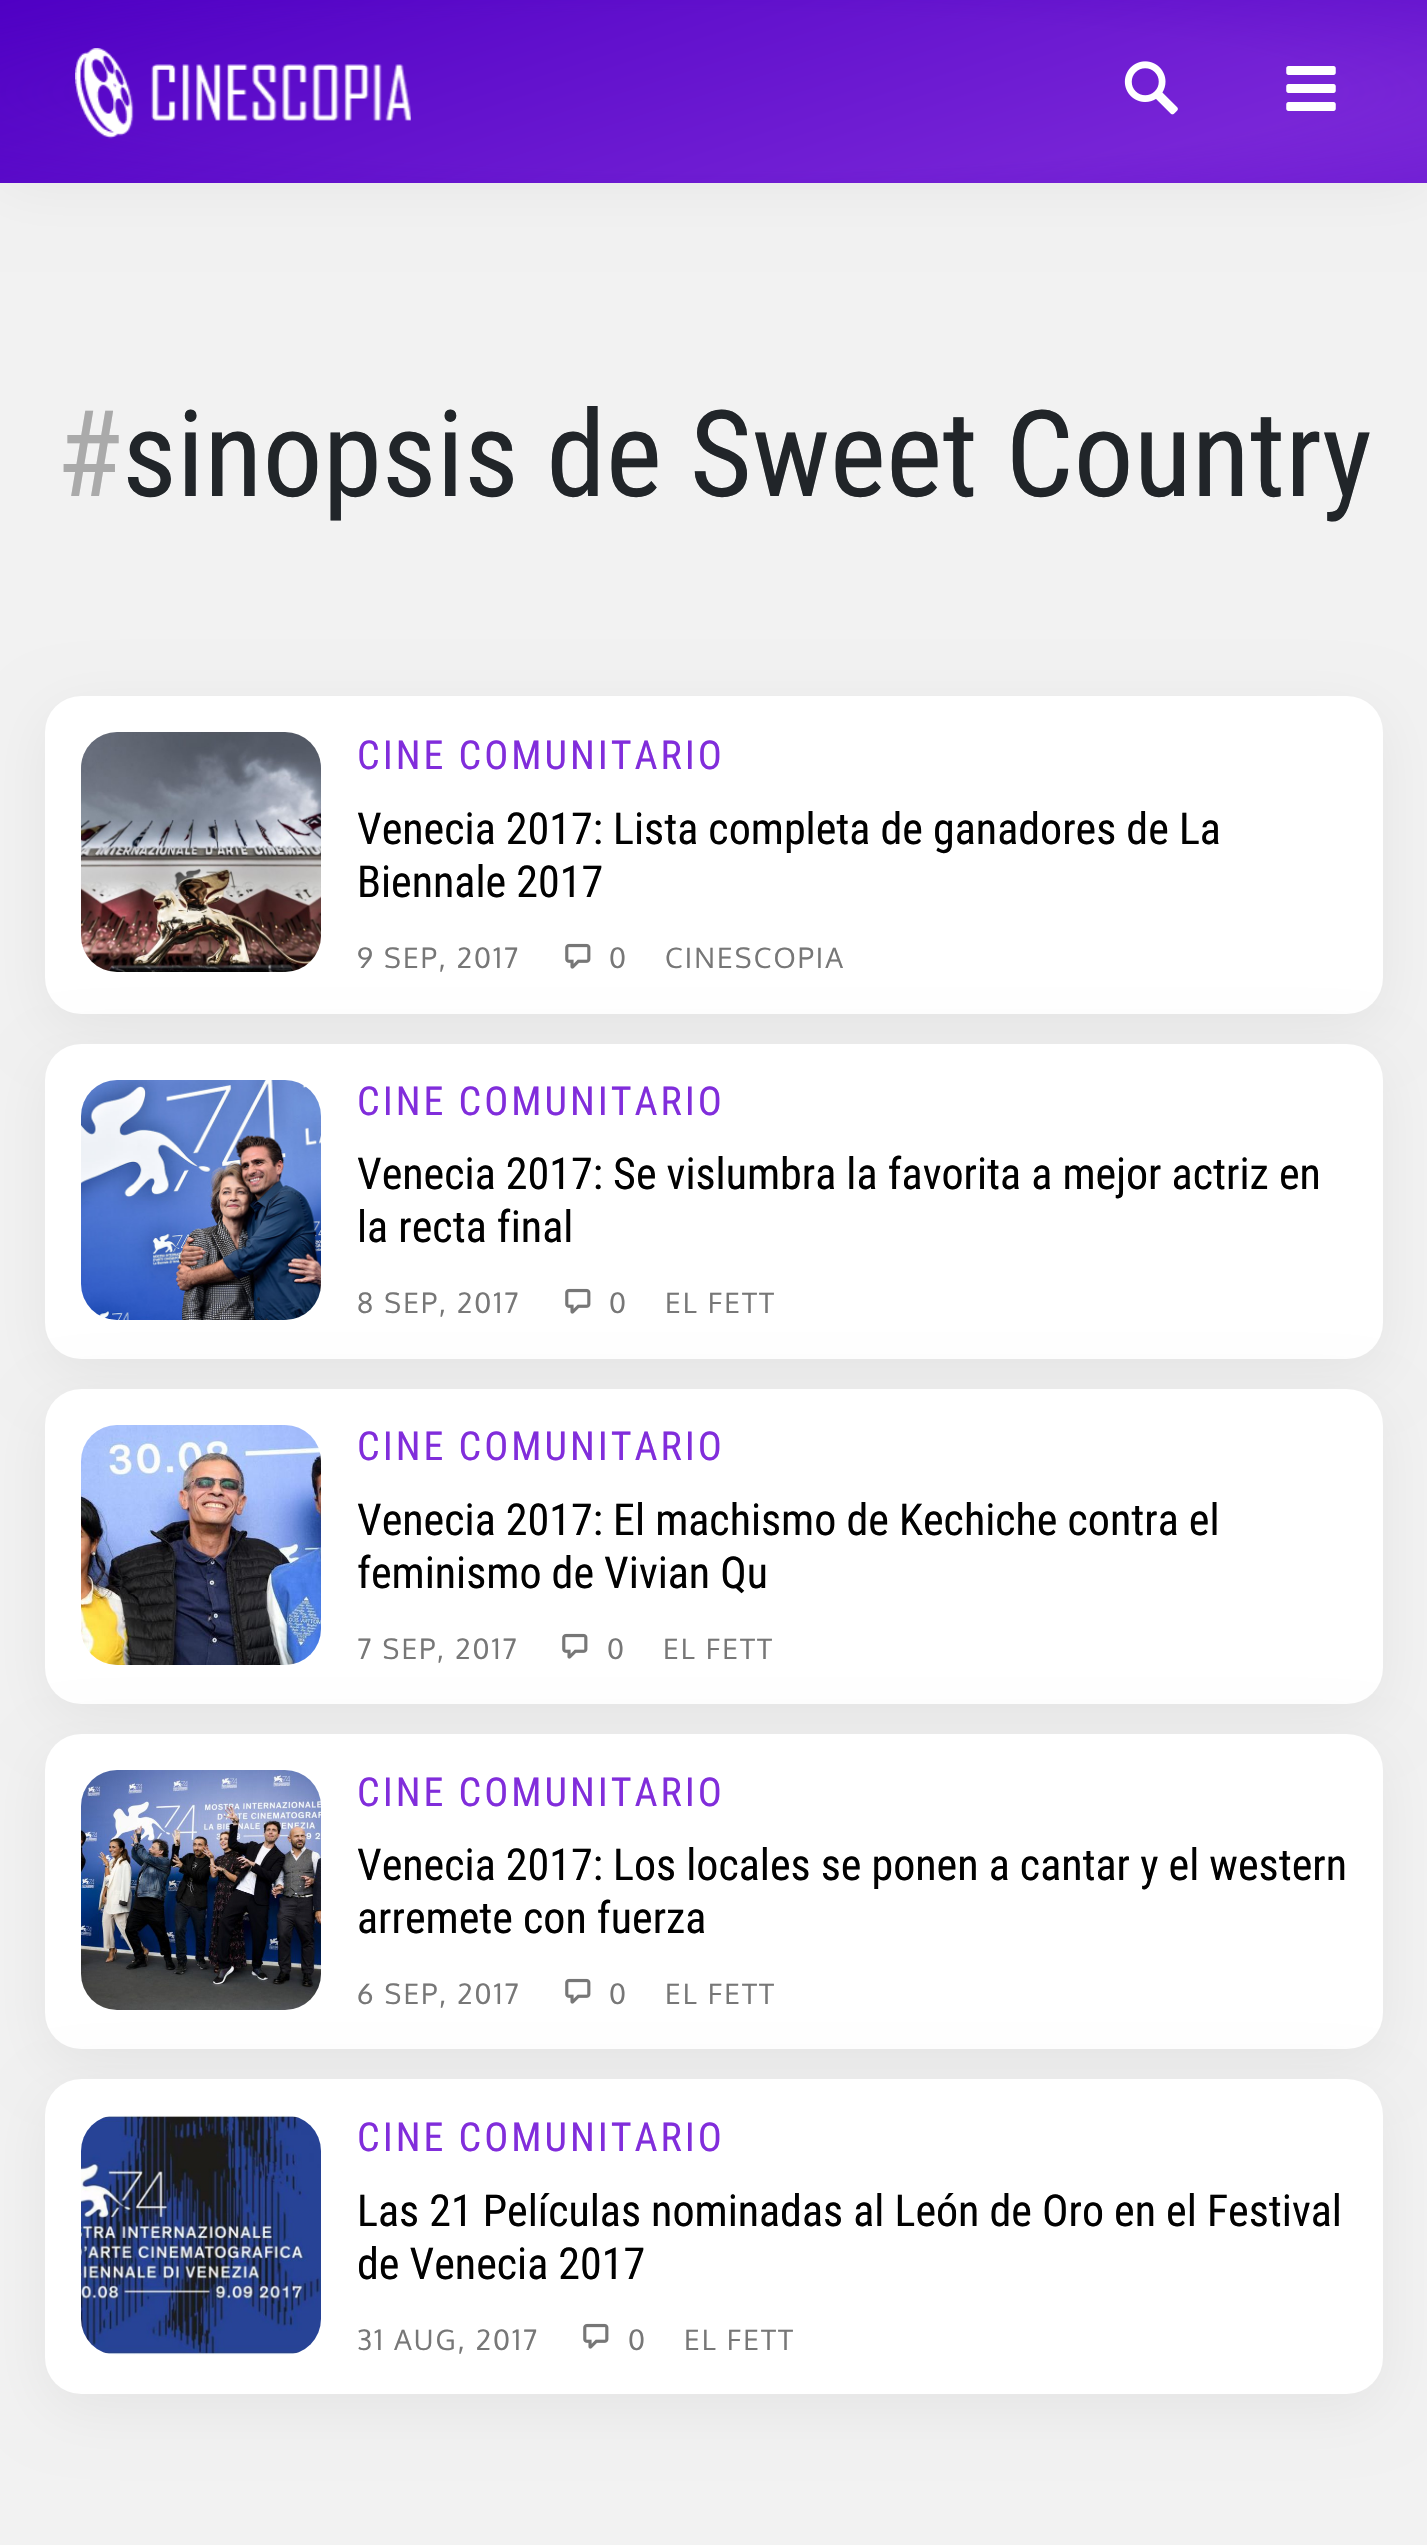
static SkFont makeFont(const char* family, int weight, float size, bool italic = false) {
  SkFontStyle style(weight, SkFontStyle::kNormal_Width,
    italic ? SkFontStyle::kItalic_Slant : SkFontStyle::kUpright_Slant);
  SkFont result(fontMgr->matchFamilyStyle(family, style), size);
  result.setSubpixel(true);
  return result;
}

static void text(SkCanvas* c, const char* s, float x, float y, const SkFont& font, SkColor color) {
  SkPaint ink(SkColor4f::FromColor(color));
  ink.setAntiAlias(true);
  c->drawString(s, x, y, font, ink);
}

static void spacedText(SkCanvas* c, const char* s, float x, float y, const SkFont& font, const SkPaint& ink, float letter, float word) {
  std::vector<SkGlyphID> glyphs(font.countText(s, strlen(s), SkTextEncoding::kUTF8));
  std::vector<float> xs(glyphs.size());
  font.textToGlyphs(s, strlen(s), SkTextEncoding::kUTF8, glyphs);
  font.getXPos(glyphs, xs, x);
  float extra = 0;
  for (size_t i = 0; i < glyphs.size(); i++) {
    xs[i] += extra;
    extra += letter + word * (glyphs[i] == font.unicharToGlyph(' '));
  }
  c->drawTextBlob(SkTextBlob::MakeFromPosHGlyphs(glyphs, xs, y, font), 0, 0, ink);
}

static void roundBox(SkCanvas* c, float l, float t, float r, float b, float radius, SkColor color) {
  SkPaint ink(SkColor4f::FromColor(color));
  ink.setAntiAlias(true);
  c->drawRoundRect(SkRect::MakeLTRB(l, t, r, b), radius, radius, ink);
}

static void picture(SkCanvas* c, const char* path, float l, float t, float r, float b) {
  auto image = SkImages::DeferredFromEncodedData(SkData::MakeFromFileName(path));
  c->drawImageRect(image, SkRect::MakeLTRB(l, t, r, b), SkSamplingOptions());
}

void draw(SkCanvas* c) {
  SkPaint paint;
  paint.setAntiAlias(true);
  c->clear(0xfff2f2f2);
  paint.setColor(0xffe4e4e4);
  paint.setMaskFilter(SkMaskFilter::MakeBlur(kNormal_SkBlurStyle, 30));
  c->drawRect(SkRect::MakeLTRB(0, 0, 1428, 183), paint);
  paint.setMaskFilter(nullptr);
  {
    const SkColor colors[] = {0xff812ddb, 0xff4f00c4};
    const float stops[] = {0, 1};
    const SkPoint ends[] = {{809, 384}, {619, -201}};
    paint.setShader(SkGradientShader::MakeLinear(ends, colors, stops, 2, SkTileMode::kClamp));
    paint.setAlpha(255);
  }
  c->drawRect(SkRect::MakeLTRB(0, 0, 1427, 183), paint);
  {
    const SkColor colors[] = {0x004f00c4, 0x4d4f00c4};
    const float stops[] = {0.6f, 1};
    SkMatrix m = SkMatrix::Translate(714, 92).preScale(1010, 129);
    paint.setShader(SkGradientShader::MakeRadial({0, 0}, 1, colors, stops, 2, SkTileMode::kClamp, 0, &m));
    paint.setAlpha(255);
  }
  c->drawRect(SkRect::MakeLTRB(0, 0, 1427, 183), paint);
  picture(c, "img_01.png", 75, 48, 411, 139);
  picture(c, "img_02.png", 1124, 61, 1178, 115);
  picture(c, "img_03.png", 1286, 66, 1336, 111);
  SkFont face1 = makeFont("Roboto Condensed", 400, 120);
  text(c, "#", 56, 496, face1, 0xffaaaaaa);
  text(c, "sinopsis de Sweet Country", 122, 496, face1, 0xff212529);
  paint.setShader(nullptr);
  paint.setColor(0xffe4e4e4);
  paint.setMaskFilter(SkMaskFilter::MakeBlur(kNormal_SkBlurStyle, 30));
  c->drawRoundRect(SkRect::MakeLTRB(45, 711, 1383, 1029), 36, 36, paint);
  paint.setMaskFilter(nullptr);
  roundBox(c, 45, 696, 1383, 1014, 36, 0xffffffff);
  picture(c, "img_04.png", 81, 732, 321, 972);
  SkFont face2 = makeFont("Roboto Condensed", 400, 40);
  paint.setColor(0xff812ddb);
  spacedText(c, "CINE COMUNITARIO", 357, 769, face2, paint, 3, 0);
  SkFont face3 = makeFont("Roboto Condensed", 400, 44);
  text(c, "Venecia 2017: Lista completa de ganadores de La", 357, 844, face3, 0xff010101);
  text(c, "Biennale 2017", 357, 897, face3, 0xff010101);
  SkFont face4 = makeFont("Oxygen", 400, 28);
  paint.setColor(0xff777777);
  spacedText(c, "9 SEP, 2017", 357, 968, face4, paint, 2.1f, 0);
  picture(c, "img_05.png", 565, 943, 591, 969);
  spacedText(c, "0", 609, 968, face4, paint, 2.1f, 0);
  spacedText(c, "CINESCOPIA", 665, 968, face4, paint, 2.1f, 0);
  paint.setColor(0xffe4e4e4);
  paint.setMaskFilter(SkMaskFilter::MakeBlur(kNormal_SkBlurStyle, 30));
  c->drawRoundRect(SkRect::MakeLTRB(45, 1059, 1383, 1374), 36, 36, paint);
  paint.setMaskFilter(nullptr);
  roundBox(c, 45, 1044, 1383, 1359, 36, 0xffffffff);
  picture(c, "img_06.png", 81, 1080, 321, 1320);
  paint.setColor(0xff812ddb);
  spacedText(c, "CINE COMUNITARIO", 357, 1115, face2, paint, 3, 0);
  text(c, "Venecia 2017: Se vislumbra la favorita a mejor actriz en", 357, 1189, face3, 0xff010101);
  text(c, "la recta final", 357, 1242, face3, 0xff010101);
  paint.setColor(0xff777777);
  spacedText(c, "8 SEP, 2017", 357, 1313, face4, paint, 2.1f, 0);
  picture(c, "img_05.png", 565, 1288, 591, 1314);
  spacedText(c, "0", 609, 1313, face4, paint, 2.1f, 0);
  spacedText(c, "EL FETT", 665, 1313, face4, paint, 2.1f, 0);
  paint.setColor(0xffe4e4e4);
  paint.setMaskFilter(SkMaskFilter::MakeBlur(kNormal_SkBlurStyle, 30));
  c->drawRoundRect(SkRect::MakeLTRB(45, 1404, 1383, 1719), 36, 36, paint);
  paint.setMaskFilter(nullptr);
  roundBox(c, 45, 1389, 1383, 1704, 36, 0xffffffff);
  picture(c, "img_07.png", 81, 1425, 321, 1665);
  paint.setColor(0xff812ddb);
  spacedText(c, "CINE COMUNITARIO", 357, 1460, face2, paint, 3, 0);
  text(c, "Venecia 2017: El machismo de Kechiche contra el", 357, 1535, face3, 0xff010101);
  text(c, "feminismo de Vivian Qu", 357, 1588, face3, 0xff010101);
  paint.setColor(0xff777777);
  spacedText(c, "7 SEP, 2017", 357, 1659, face4, paint, 2.1f, 0);
  picture(c, "img_05.png", 562, 1633, 588, 1659);
  spacedText(c, "0", 607, 1659, face4, paint, 2.1f, 0);
  spacedText(c, "EL FETT", 663, 1659, face4, paint, 2.1f, 0);
  paint.setColor(0xffe4e4e4);
  paint.setMaskFilter(SkMaskFilter::MakeBlur(kNormal_SkBlurStyle, 30));
  c->drawRoundRect(SkRect::MakeLTRB(45, 1749, 1383, 2064), 36, 36, paint);
  paint.setMaskFilter(nullptr);
  roundBox(c, 45, 1734, 1383, 2049, 36, 0xffffffff);
  picture(c, "img_08.png", 81, 1770, 321, 2010);
  paint.setColor(0xff812ddb);
  spacedText(c, "CINE COMUNITARIO", 357, 1806, face2, paint, 3, 0);
  text(c, "Venecia 2017: Los locales se ponen a cantar y el western", 357, 1880, face3, 0xff010101);
  text(c, "arremete con fuerza", 357, 1933, face3, 0xff010101);
  paint.setColor(0xff777777);
  spacedText(c, "6 SEP, 2017", 357, 2004, face4, paint, 2.1f, 0);
  picture(c, "img_05.png", 565, 1978, 591, 2004);
  spacedText(c, "0", 609, 2004, face4, paint, 2.1f, 0);
  spacedText(c, "EL FETT", 665, 2004, face4, paint, 2.1f, 0);
  paint.setColor(0xffe4e4e4);
  paint.setMaskFilter(SkMaskFilter::MakeBlur(kNormal_SkBlurStyle, 30));
  c->drawRoundRect(SkRect::MakeLTRB(45, 2094, 1383, 2409), 36, 36, paint);
  paint.setMaskFilter(nullptr);
  roundBox(c, 45, 2079, 1383, 2394, 36, 0xffffffff);
  picture(c, "img_09.png", 81, 2115, 321, 2355);
  paint.setColor(0xff812ddb);
  spacedText(c, "CINE COMUNITARIO", 357, 2151, face2, paint, 3, 0);
  text(c, "Las 21 Películas nominadas al León de Oro en el Festival", 357, 2226, face3, 0xff010101);
  text(c, "de Venecia 2017", 357, 2279, face3, 0xff010101);
  paint.setColor(0xff777777);
  spacedText(c, "31 AUG, 2017", 357, 2350, face4, paint, 2.1f, 0);
  picture(c, "img_05.png", 583, 2323, 609, 2349);
  spacedText(c, "0", 628, 2350, face4, paint, 2.1f, 0);
  spacedText(c, "EL FETT", 684, 2350, face4, paint, 2.1f, 0);
}
